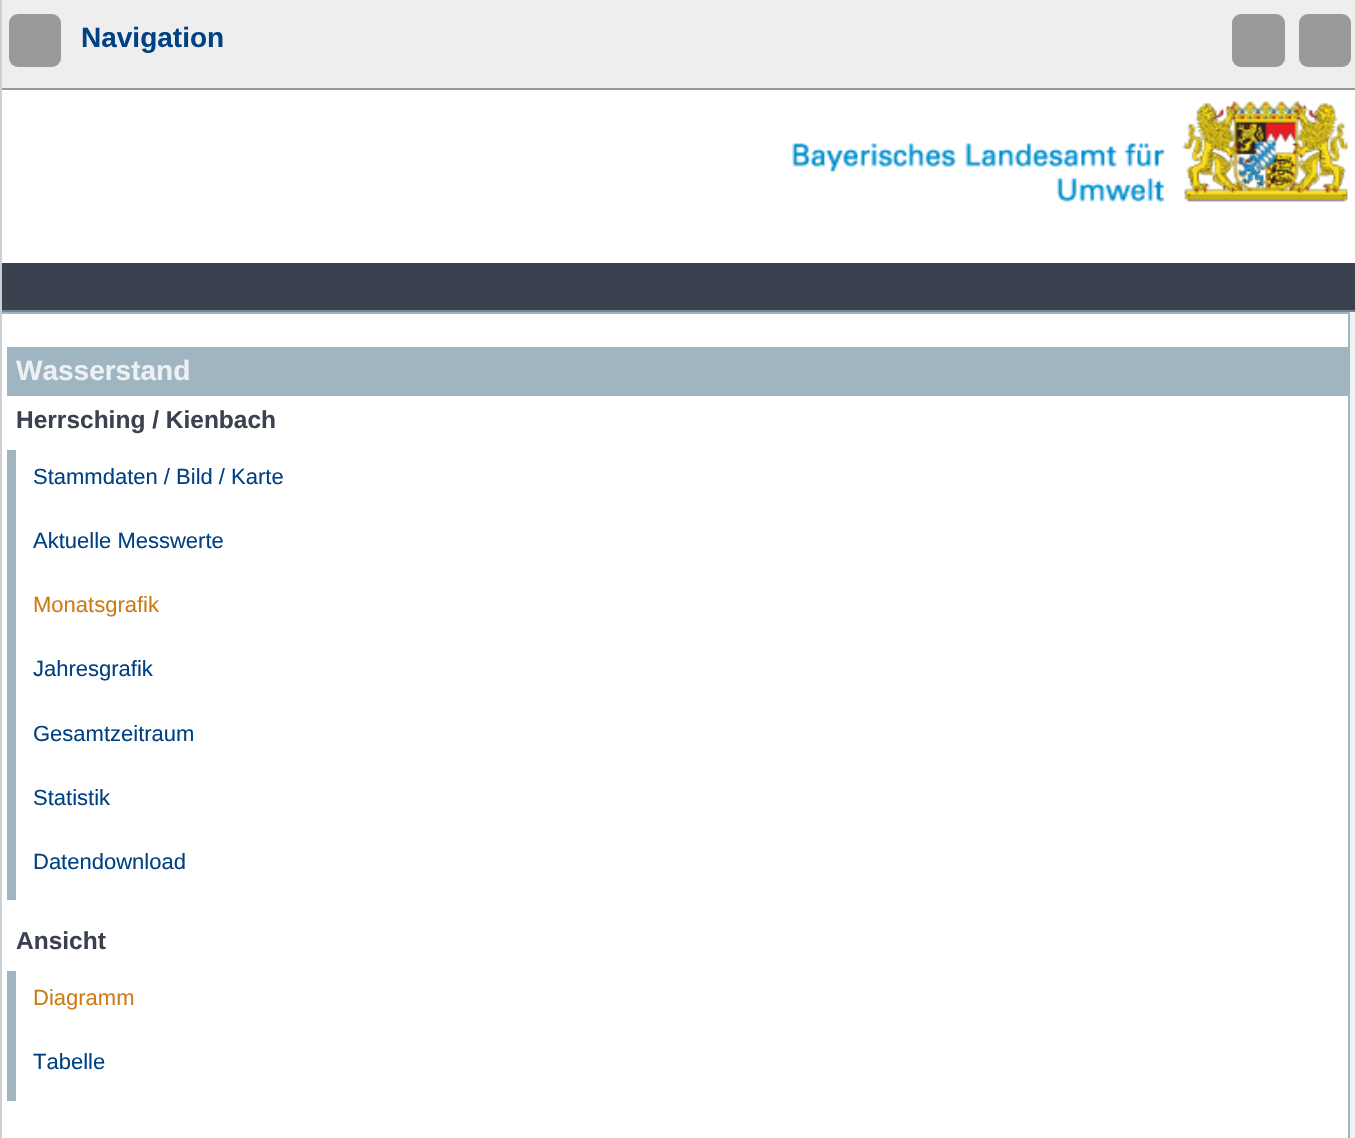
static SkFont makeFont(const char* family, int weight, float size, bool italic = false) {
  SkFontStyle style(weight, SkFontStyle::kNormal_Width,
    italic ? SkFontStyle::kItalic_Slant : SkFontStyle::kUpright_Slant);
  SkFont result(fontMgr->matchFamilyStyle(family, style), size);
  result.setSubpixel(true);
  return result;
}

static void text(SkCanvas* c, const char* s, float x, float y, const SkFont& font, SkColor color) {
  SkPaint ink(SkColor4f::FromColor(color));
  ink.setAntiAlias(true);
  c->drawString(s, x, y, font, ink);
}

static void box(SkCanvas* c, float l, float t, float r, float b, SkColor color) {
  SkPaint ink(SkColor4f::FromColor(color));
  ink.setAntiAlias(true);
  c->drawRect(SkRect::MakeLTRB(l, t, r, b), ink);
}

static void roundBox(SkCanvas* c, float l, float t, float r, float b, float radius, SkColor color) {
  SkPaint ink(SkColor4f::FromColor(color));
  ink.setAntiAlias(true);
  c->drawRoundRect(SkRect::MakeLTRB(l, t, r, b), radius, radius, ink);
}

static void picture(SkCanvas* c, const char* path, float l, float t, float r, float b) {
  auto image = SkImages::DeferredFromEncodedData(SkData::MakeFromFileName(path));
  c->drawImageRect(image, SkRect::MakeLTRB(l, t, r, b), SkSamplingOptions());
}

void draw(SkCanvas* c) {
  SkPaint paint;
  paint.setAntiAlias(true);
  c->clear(0xffffffff);
  box(c, 0, 0, 2, 1138, 0xffcecfd4);
  box(c, 2, 0, 1355, 88, 0xffeeeeee);
  box(c, 2, 88, 1355, 90, 0xff999999);
  roundBox(c, 9, 14, 61, 67, 9, 0xff999999);
  SkFont face1 = makeFont("Liberation Sans", 700, 28);
  text(c, "Navigation", 81, 47, face1, 0xff004185);
  roundBox(c, 1232, 14, 1285, 67, 9, 0xff999999);
  roundBox(c, 1299, 14, 1351, 67, 9, 0xff999999);
  picture(c, "img_01.png", 792, 101, 1348, 202);
  box(c, 2, 263, 1355, 310, 0xff3b424f);
  box(c, 2, 310, 1355, 312, 0xff7a8291);
  box(c, 1350, 312, 1355, 1138, 0xfff2f2f2);
  box(c, 2, 312, 1349, 314, 0xff9fb5c1);
  box(c, 1348, 312, 1350, 1138, 0xff9fb5c1);
  box(c, 7, 347, 1348, 396, 0xff9fb5c1);
  text(c, "Wasserstand", 16, 380, face1, 0xffedf1f3);
  SkFont face2 = makeFont("Liberation Sans", 700, 24.5f);
  text(c, "Herrsching / Kienbach", 16, 428, face2, 0xff3b424f);
  box(c, 7, 450, 16, 900, 0xff9fb5c1);
  SkFont face3 = makeFont("Liberation Sans", 400, 22);
  text(c, "Stammdaten / Bild / Karte", 33, 484, face3, 0xff004185);
  text(c, "Aktuelle Messwerte", 33, 548, face3, 0xff004185);
  text(c, "Monatsgrafik", 33, 612, face3, 0xffcc7b17);
  text(c, "Jahresgrafik", 33, 676, face3, 0xff004185);
  text(c, "Gesamtzeitraum", 33, 741, face3, 0xff004185);
  text(c, "Statistik", 33, 805, face3, 0xff004185);
  text(c, "Datendownload", 33, 869, face3, 0xff004185);
  text(c, "Ansicht", 16, 949, face2, 0xff3b424f);
  box(c, 7, 971, 16, 1101, 0xff9fb5c1);
  text(c, "Diagramm", 33, 1005, face3, 0xffcc7b17);
  text(c, "Tabelle", 33, 1069, face3, 0xff004185);
}
